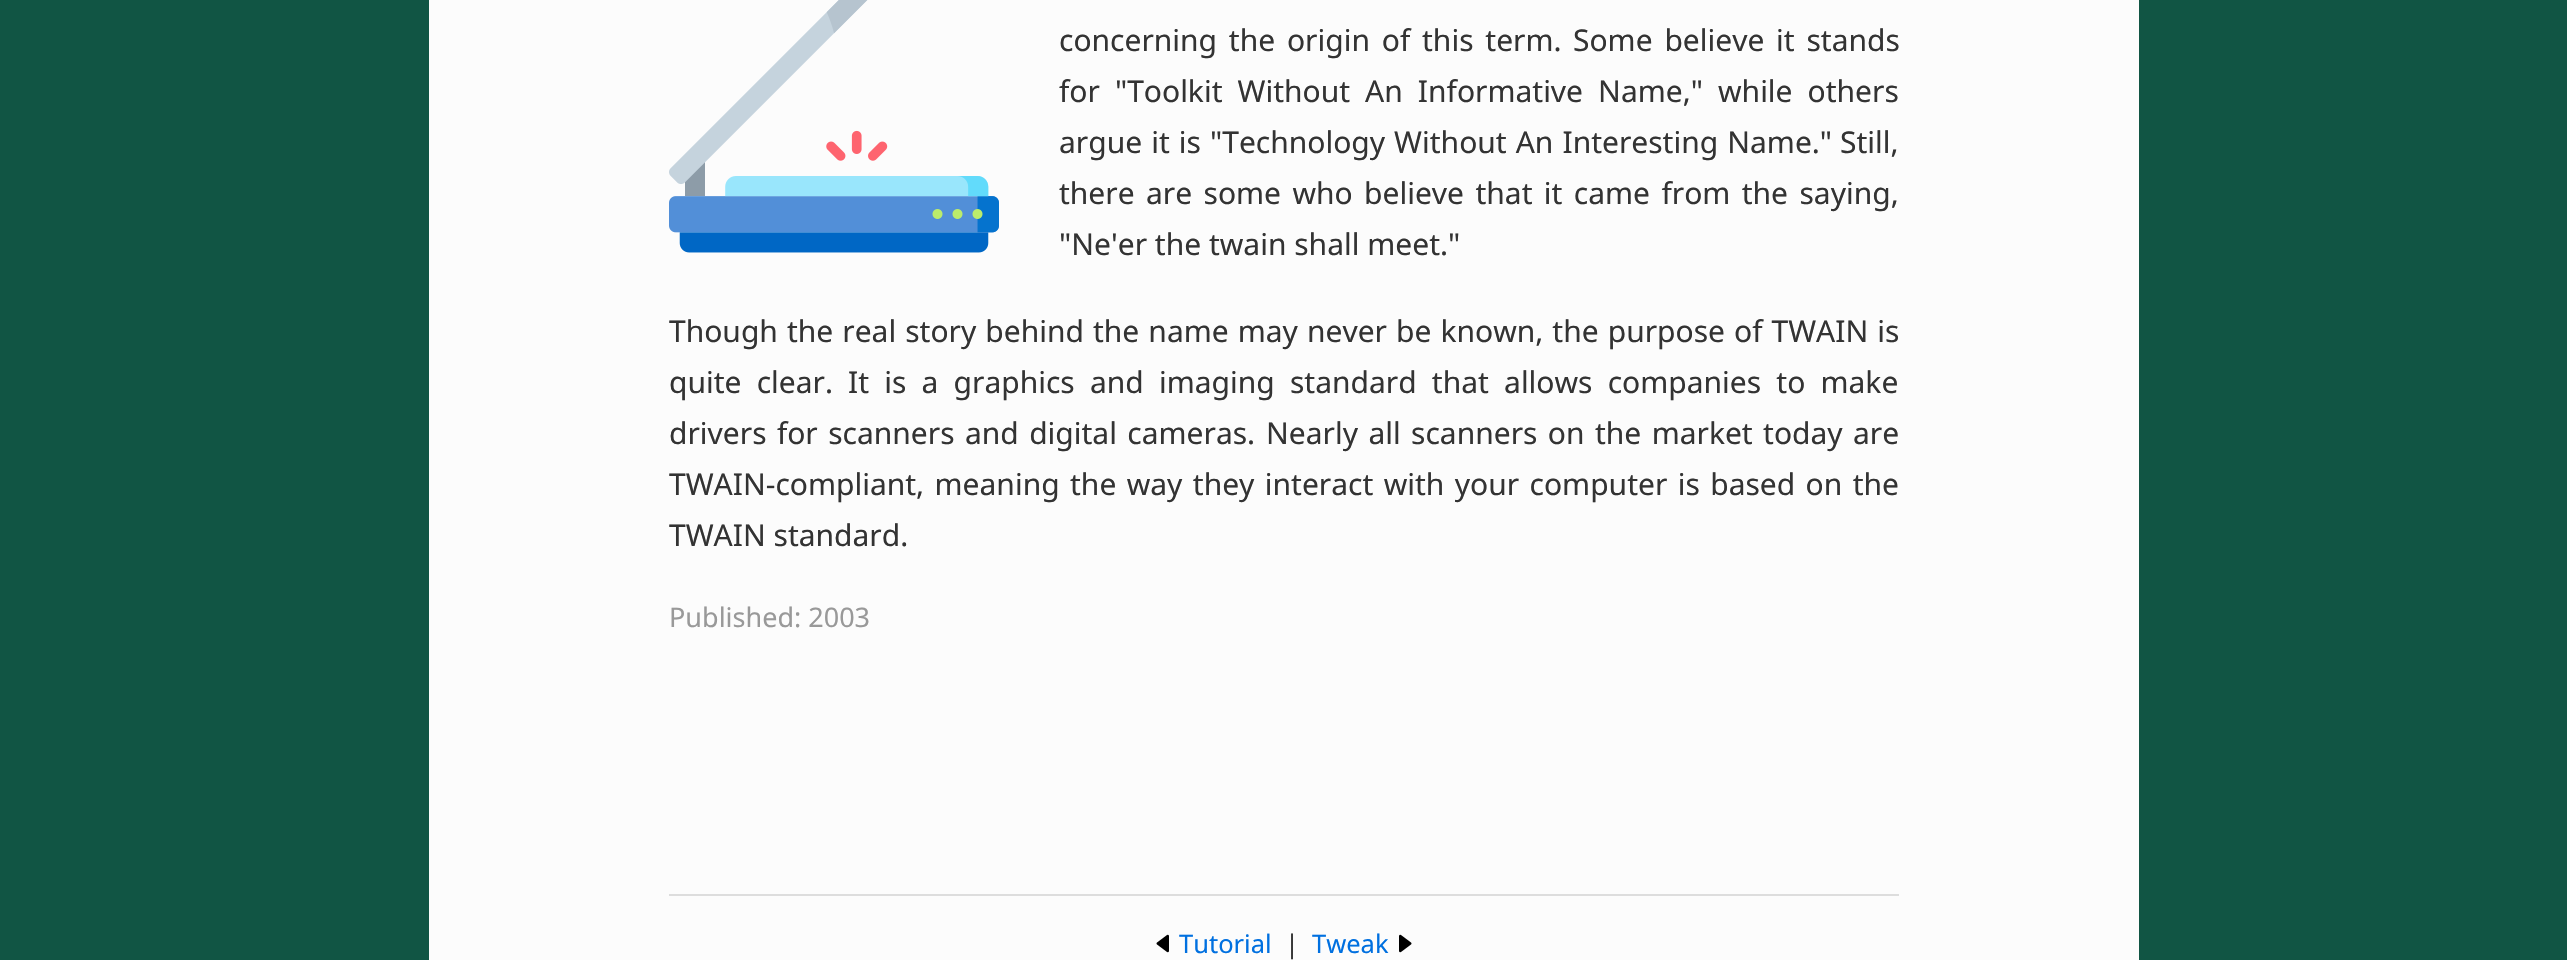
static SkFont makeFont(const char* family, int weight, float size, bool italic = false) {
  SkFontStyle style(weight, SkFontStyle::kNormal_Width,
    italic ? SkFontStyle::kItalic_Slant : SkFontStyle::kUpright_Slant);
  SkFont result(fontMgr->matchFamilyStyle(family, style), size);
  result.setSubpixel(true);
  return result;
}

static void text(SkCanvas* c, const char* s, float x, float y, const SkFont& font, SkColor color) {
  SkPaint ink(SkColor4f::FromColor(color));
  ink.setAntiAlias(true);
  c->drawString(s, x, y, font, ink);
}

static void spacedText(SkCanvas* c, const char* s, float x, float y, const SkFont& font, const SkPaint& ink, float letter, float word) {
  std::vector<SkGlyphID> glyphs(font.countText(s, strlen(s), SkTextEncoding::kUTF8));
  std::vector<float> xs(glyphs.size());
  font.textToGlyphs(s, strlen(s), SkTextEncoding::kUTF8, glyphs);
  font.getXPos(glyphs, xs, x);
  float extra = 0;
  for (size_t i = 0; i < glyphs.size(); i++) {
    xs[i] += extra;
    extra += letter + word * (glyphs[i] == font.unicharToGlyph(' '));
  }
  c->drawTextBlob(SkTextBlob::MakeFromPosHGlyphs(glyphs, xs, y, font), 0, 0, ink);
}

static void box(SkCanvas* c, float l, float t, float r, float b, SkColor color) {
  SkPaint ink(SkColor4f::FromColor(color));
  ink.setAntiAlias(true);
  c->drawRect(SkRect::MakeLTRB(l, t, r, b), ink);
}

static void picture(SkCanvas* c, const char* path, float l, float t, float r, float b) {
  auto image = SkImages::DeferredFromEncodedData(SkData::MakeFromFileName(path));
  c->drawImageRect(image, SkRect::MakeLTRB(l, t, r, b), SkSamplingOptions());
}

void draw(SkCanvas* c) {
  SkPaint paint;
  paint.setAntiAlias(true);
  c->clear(0xff115544);
  box(c, 429, 0, 2139, 960, 0xfffcfcfc);
  picture(c, "img_01.png", 669, 0, 999, 253);
  SkFont face1 = makeFont("Noto Sans", 400, 30);
  paint.setColor(0xff333333);
  spacedText(c, "concerning the origin of this term.", 1059, 51, face1, paint, 0, 4);
  spacedText(c, "Some believe it stands", 1573, 51, face1, paint, 0, 4);
  spacedText(c, "for \"Toolkit Without An Informative Name,\" while others", 1059, 102, face1, paint, 0, 7.25f);
  spacedText(c, "argue it is \"Technology Without An Interesting Name.\"", 1059, 153, face1, paint, 0, 1.25f);
  text(c, "Still,", 1840, 153, face1, 0xff333333);
  spacedText(c, "there are some who believe that it came from the saying,", 1059, 204, face1, paint, 0, 3.6f);
  text(c, "\"Ne'er the twain shall meet.\"", 1059, 255, face1, 0xff333333);
  spacedText(c, "Though the real story behind the name may never be known, the purpose of TWAIN is", 669, 342, face1, paint, 0, 1.25f);
  spacedText(c, "quite clear.", 669, 393, face1, paint, 0, 7.4f);
  spacedText(c, "It is a graphics and imaging standard that allows companies to make", 848, 393, face1, paint, 0, 7.4f);
  spacedText(c, "drivers for scanners and digital cameras.", 669, 444, face1, paint, 0, 2.6f);
  spacedText(c, "Nearly all scanners on the market today are", 1266, 444, face1, paint, 0, 2.6f);
  spacedText(c, "TWAIN-compliant, meaning the way they interact with your computer is based on the", 669, 495, face1, paint, 0, 2.6f);
  text(c, "TWAIN standard.", 669, 546, face1, 0xff333333);
  SkFont face2 = makeFont("Noto Sans", 400, 27);
  text(c, "Published: 2003", 669, 627, face2, 0xff999999);
  box(c, 669, 894, 1899, 896, 0xffdddddd);
  picture(c, "img_02.png", 1156, 934, 1169, 953);
  SkFont face3 = makeFont("Noto Sans", 400, 25.5f);
  text(c, "Tutorial", 1179, 953, face3, 0xff0070e0);
  text(c, "|", 1285, 953, face3, 0xff333333);
  text(c, "Tweak", 1312, 953, face3, 0xff0070e0);
  picture(c, "img_03.png", 1399, 934, 1412, 953);
}
